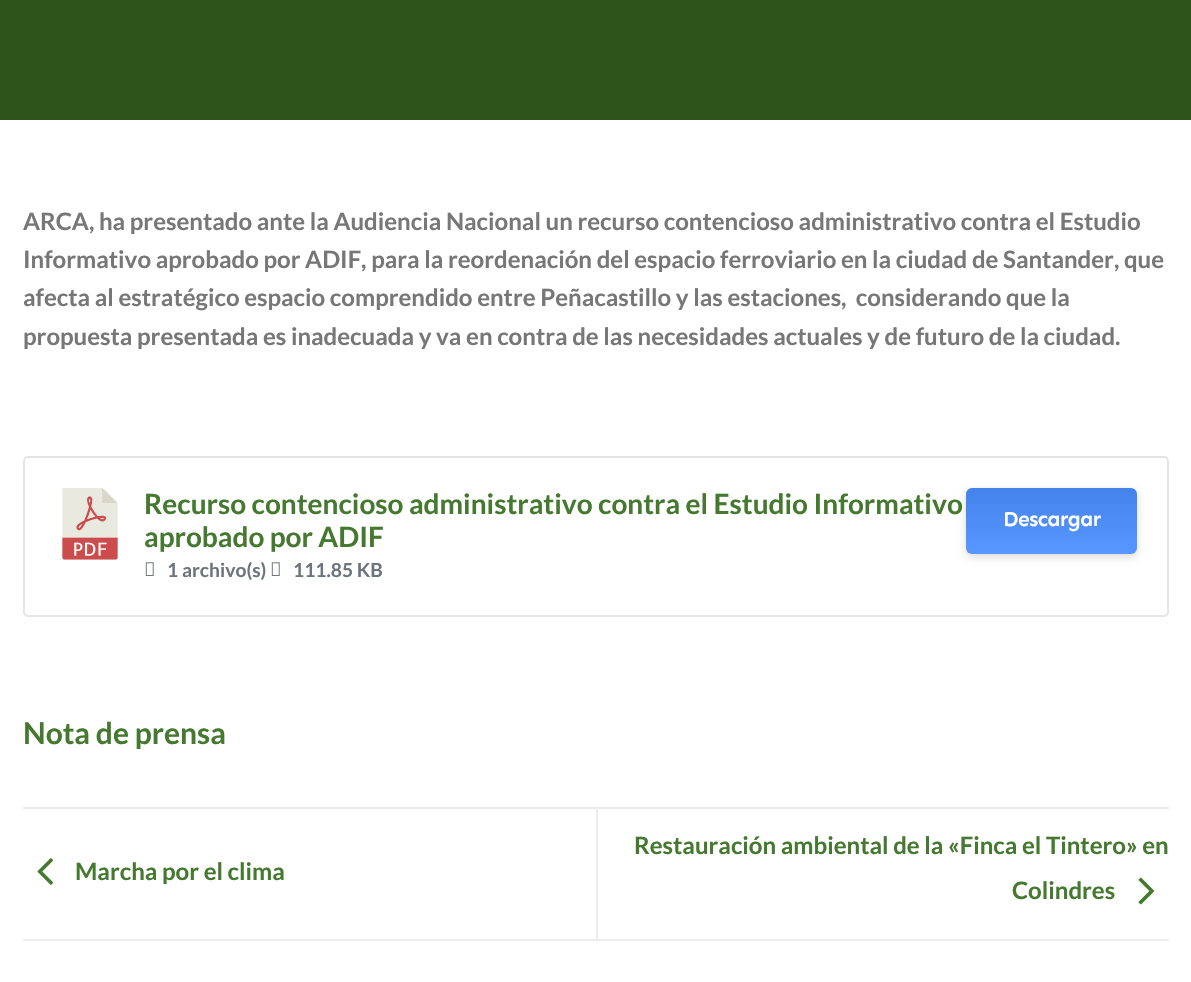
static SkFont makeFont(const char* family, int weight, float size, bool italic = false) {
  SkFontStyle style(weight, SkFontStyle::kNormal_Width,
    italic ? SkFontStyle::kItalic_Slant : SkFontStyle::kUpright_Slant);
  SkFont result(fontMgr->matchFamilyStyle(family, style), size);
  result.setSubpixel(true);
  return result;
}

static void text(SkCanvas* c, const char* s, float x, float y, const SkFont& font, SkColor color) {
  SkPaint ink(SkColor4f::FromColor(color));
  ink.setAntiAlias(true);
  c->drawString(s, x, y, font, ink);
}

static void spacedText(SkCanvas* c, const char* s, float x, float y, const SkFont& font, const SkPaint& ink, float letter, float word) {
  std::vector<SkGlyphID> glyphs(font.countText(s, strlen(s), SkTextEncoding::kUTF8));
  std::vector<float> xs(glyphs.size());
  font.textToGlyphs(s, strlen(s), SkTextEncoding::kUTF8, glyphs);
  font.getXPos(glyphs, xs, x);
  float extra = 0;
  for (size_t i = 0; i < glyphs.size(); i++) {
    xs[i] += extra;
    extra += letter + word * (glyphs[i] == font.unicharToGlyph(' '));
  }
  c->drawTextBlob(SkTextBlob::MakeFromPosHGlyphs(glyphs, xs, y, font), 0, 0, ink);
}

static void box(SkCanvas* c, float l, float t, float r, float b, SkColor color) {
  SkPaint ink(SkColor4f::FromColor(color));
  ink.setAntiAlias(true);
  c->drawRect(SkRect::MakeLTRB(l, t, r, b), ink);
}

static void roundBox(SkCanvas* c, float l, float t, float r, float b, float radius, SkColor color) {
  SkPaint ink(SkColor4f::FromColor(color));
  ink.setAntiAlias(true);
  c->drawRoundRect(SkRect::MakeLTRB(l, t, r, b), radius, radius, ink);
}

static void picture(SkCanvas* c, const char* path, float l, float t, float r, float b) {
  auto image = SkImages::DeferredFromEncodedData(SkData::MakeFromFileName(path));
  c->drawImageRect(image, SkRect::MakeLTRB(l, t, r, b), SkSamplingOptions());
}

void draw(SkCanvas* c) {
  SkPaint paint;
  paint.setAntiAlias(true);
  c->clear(0xffffffff);
  box(c, 0, 0, 1191, 120, 0xff2f541a);
  SkFont face1 = makeFont("Lato", 700, 24);
  text(c, "ARCA, ha presentado ante la Audiencia Nacional un recurso contencioso administrativo contra el Estudio", 23, 230, face1, 0xff777777);
  text(c, "Informativo aprobado por ADIF, para la reordenación del espacio ferroviario en la ciudad de Santander, que", 23, 268, face1, 0xff777777);
  text(c, "afecta al estratégico espacio comprendido entre Peñacastillo y las estaciones,  considerando que la", 23, 306, face1, 0xff777777);
  text(c, "propuesta presentada es inadecuada y va en contra de las necesidades actuales y de futuro de la ciudad.", 23, 345, face1, 0xff777777);
  paint.setStyle(SkPaint::kStroke_Style);
  paint.setStrokeWidth(2);
  paint.setColor(0xffe5e5e5);
  c->drawRoundRect(SkRect::MakeLTRB(24, 457, 1168, 616), 4, 4, paint);
  picture(c, "img_01.png", 62, 488, 118, 560);
  SkFont face2 = makeFont("Lato", 700, 28);
  text(c, "Recurso contencioso administrativo contra el Estudio Informativo", 144, 514, face2, 0xff44792f);
  text(c, "aprobado por ADIF", 144, 547, face2, 0xff44792f);
  picture(c, "img_02.png", 145, 562, 154, 576);
  SkFont face3 = makeFont("Lato", 700, 19.25f);
  text(c, "1 archivo(s)", 167, 577, face3, 0xff6c757d);
  picture(c, "img_02.png", 271, 562, 280, 576);
  text(c, "111.85 KB", 293, 577, face3, 0xff6c757d);
  paint.setStyle(SkPaint::kFill_Style);
  paint.setColor(0x26000000);
  paint.setMaskFilter(SkMaskFilter::MakeBlur(kNormal_SkBlurStyle, 4.5f));
  c->drawRoundRect(SkRect::MakeLTRB(966, 491, 1137, 557), 6, 6, paint);
  paint.setMaskFilter(nullptr);
  roundBox(c, 966, 488, 1137, 554, 6, 0xff4a8eff);
  {
    const SkColor colors[] = {0x14000000, 0x14ffffff};
    const float stops[] = {0, 1};
    const SkPoint ends[] = {{1052, 488}, {1052, 554}};
    paint.setShader(SkGradientShader::MakeLinear(ends, colors, stops, 2, SkTileMode::kClamp));
    paint.setAlpha(255);
  }
  c->drawRoundRect(SkRect::MakeLTRB(966, 488, 1137, 554), 6, 6, paint);
  SkFont face4 = makeFont("Sen", 600, 21);
  paint.setShader(nullptr);
  paint.setColor(0xffffffff);
  spacedText(c, "Descargar", 1003, 526, face4, paint, -0.5f, 0);
  SkFont face5 = makeFont("Lato", 700, 30);
  text(c, "Nota de prensa", 23, 744, face5, 0xff44792f);
  box(c, 23, 807, 1169, 809, 0xffececec);
  box(c, 23, 939, 1169, 941, 0xffececec);
  picture(c, "img_03.png", 37, 858, 54, 885);
  text(c, "Marcha por el clima", 75, 880, face1, 0xff44792f);
  box(c, 596, 809, 598, 939, 0xffececec);
  text(c, "Restauración ambiental de la «Finca el Tintero» en", 634, 854, face1, 0xff44792f);
  text(c, "Colindres", 1012, 899, face1, 0xff44792f);
  picture(c, "img_04.png", 1138, 877, 1155, 905);
}
